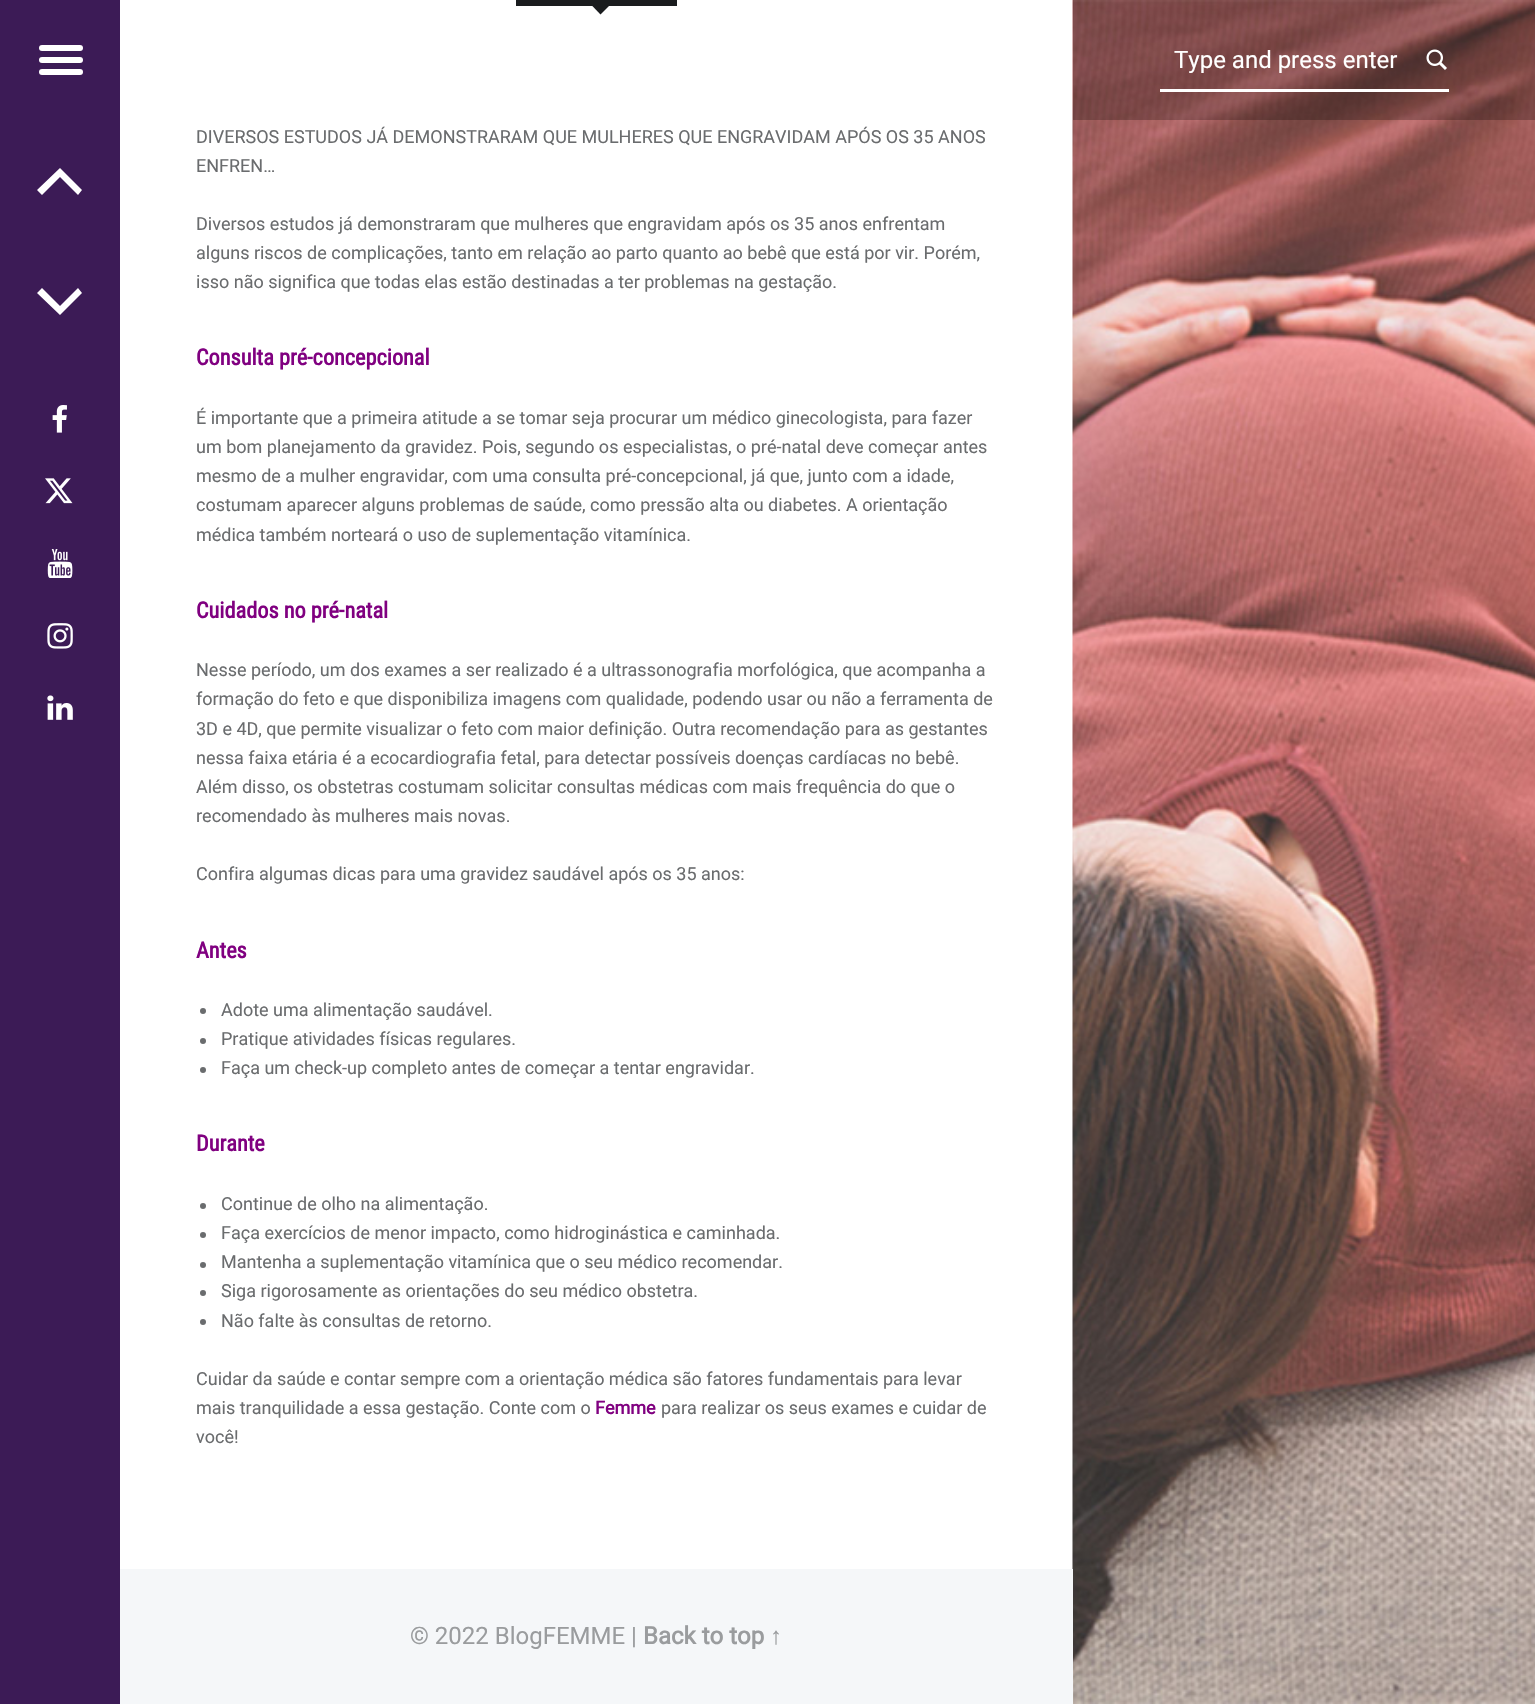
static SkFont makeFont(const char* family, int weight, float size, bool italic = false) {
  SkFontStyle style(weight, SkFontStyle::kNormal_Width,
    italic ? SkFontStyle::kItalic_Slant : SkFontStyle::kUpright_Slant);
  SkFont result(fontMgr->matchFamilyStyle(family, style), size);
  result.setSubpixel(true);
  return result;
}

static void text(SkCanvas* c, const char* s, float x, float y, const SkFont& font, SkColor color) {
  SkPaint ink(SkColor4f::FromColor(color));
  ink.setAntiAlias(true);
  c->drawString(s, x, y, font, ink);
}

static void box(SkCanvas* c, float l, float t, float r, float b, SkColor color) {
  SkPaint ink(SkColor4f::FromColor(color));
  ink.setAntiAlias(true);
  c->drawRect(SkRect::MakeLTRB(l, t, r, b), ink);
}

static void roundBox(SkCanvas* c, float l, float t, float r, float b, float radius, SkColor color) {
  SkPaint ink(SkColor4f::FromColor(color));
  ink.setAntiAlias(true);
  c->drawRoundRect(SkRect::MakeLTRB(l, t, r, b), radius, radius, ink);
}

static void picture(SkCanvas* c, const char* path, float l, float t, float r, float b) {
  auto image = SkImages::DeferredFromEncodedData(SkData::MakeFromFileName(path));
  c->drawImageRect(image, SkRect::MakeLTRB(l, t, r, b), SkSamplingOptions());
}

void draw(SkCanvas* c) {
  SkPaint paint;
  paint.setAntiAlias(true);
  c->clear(0xffffffff);
  box(c, 0, 0, 120, 1704, 0xff3c1b56);
  roundBox(c, 39, 45, 83, 51, 3, 0xffffffff);
  roundBox(c, 39, 57, 83, 63, 3, 0xffffffff);
  roundBox(c, 39, 69, 83, 75, 3, 0xffffffff);
  paint.setColor(0xffffffff);
  c->drawPath(SkPathBuilder().moveTo(60, 168).lineTo(82, 190).lineTo(78, 195).lineTo(60, 177).lineTo(42, 195).lineTo(37, 190).close().detach(), paint);
  c->drawPath(SkPathBuilder().moveTo(60, 315).lineTo(37, 293).lineTo(42, 288).lineTo(60, 306).lineTo(78, 288).lineTo(82, 293).close().detach(), paint);
  picture(c, "img_01.png", 52, 405, 67, 433);
  picture(c, "img_02.png", 45, 478, 73, 504);
  picture(c, "img_03.png", 47, 549, 73, 578);
  picture(c, "img_04.png", 47, 623, 73, 649);
  picture(c, "img_05.png", 47, 695, 73, 720);
  picture(c, "img_07.png", 1072, 0, 1535, 1704);
  box(c, 1073, 0, 1535, 120, 0x40000000);
  box(c, 1160, 89, 1449, 92, 0xffffffff);
  SkFont face1 = makeFont("Roboto", 400, 24);
  text(c, "Type and press enter", 1174, 68, face1, 0xffffffff);
  picture(c, "img_06.png", 1426, 49, 1447, 70);
  box(c, 516, 0, 677, 6, 0xff1a1c1e);
  paint.setColor(0xff1a1c1e);
  c->drawPath(SkPathBuilder().moveTo(600.5f, -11).lineTo(613.5f, 1.5f).lineTo(600.5f, 14.5f).lineTo(588, 1.5f).close().detach(), paint);
  SkFont face2 = makeFont("Roboto", 400, 18);
  text(c, "DIVERSOS ESTUDOS JÁ DEMONSTRARAM QUE MULHERES QUE ENGRAVIDAM APÓS OS 35 ANOS", 196, 143, face2, 0xff6a6c6e);
  text(c, "ENFREN…", 196, 172, face2, 0xff6a6c6e);
  text(c, "Diversos estudos já demonstraram que mulheres que engravidam após os 35 anos enfrentam", 196, 230, face2, 0xff6a6c6e);
  text(c, "alguns riscos de complicações, tanto em relação ao parto quanto ao bebê que está por vir. Porém,", 196, 259, face2, 0xff6a6c6e);
  text(c, "isso não significa que todas elas estão destinadas a ter problemas na gestação.", 196, 288, face2, 0xff6a6c6e);
  SkFont face3 = makeFont("Roboto Condensed", 700, 22.25f);
  text(c, "Consulta pré-concepcional", 196, 365, face3, 0xff800080);
  text(c, "É importante que a primeira atitude a se tomar seja procurar um médico ginecologista, para fazer", 196, 424, face2, 0xff6a6c6e);
  text(c, "um bom planejamento da gravidez. Pois, segundo os especialistas, o pré-natal deve começar antes", 196, 453, face2, 0xff6a6c6e);
  text(c, "mesmo de a mulher engravidar, com uma consulta pré-concepcional, já que, junto com a idade,", 196, 482, face2, 0xff6a6c6e);
  text(c, "costumam aparecer alguns problemas de saúde, como pressão alta ou diabetes. A orientação", 196, 511, face2, 0xff6a6c6e);
  text(c, "médica também norteará o uso de suplementação vitamínica.", 196, 541, face2, 0xff6a6c6e);
  text(c, "Cuidados no pré-natal", 196, 618, face3, 0xff800080);
  text(c, "Nesse período, um dos exames a ser realizado é a ultrassonografia morfológica, que acompanha a", 196, 676, face2, 0xff6a6c6e);
  text(c, "formação do feto e que disponibiliza imagens com qualidade, podendo usar ou não a ferramenta de", 196, 705, face2, 0xff6a6c6e);
  text(c, "3D e 4D, que permite visualizar o feto com maior definição. Outra recomendação para as gestantes", 196, 735, face2, 0xff6a6c6e);
  text(c, "nessa faixa etária é a ecocardiografia fetal, para detectar possíveis doenças cardíacas no bebê.", 196, 764, face2, 0xff6a6c6e);
  text(c, "Além disso, os obstetras costumam solicitar consultas médicas com mais frequência do que o", 196, 793, face2, 0xff6a6c6e);
  text(c, "recomendado às mulheres mais novas.", 196, 822, face2, 0xff6a6c6e);
  text(c, "Confira algumas dicas para uma gravidez saudável após os 35 anos:", 196, 880, face2, 0xff6a6c6e);
  text(c, "Antes", 196, 958, face3, 0xff800080);
  paint.setColor(0xff6a6c6e);
  c->drawCircle(203, 1011, 3, paint);
  text(c, "Adote uma alimentação saudável.", 221, 1016, face2, 0xff6a6c6e);
  c->drawCircle(203, 1041, 3, paint);
  text(c, "Pratique atividades físicas regulares.", 221, 1045, face2, 0xff6a6c6e);
  c->drawCircle(203, 1070, 3, paint);
  text(c, "Faça um check-up completo antes de começar a tentar engravidar.", 221, 1074, face2, 0xff6a6c6e);
  text(c, "Durante", 196, 1151, face3, 0xff800080);
  c->drawCircle(203, 1206, 3, paint);
  text(c, "Continue de olho na alimentação.", 221, 1210, face2, 0xff6a6c6e);
  c->drawCircle(203, 1235, 3, paint);
  text(c, "Faça exercícios de menor impacto, como hidroginástica e caminhada.", 221, 1239, face2, 0xff6a6c6e);
  c->drawCircle(203, 1265, 3, paint);
  text(c, "Mantenha a suplementação vitamínica que o seu médico recomendar.", 221, 1268, face2, 0xff6a6c6e);
  c->drawCircle(203, 1293, 3, paint);
  text(c, "Siga rigorosamente as orientações do seu médico obstetra.", 221, 1297, face2, 0xff6a6c6e);
  c->drawCircle(203, 1322, 3, paint);
  text(c, "Não falte às consultas de retorno.", 221, 1327, face2, 0xff6a6c6e);
  text(c, "Cuidar da saúde e contar sempre com a orientação médica são fatores fundamentais para levar", 196, 1385, face2, 0xff6a6c6e);
  text(c, "mais tranquilidade a essa gestação. Conte com o", 196, 1414, face2, 0xff6a6c6e);
  SkFont face4 = makeFont("Roboto", 700, 18);
  text(c, "Femme", 595, 1414, face4, 0xff800080);
  text(c, "para realizar os seus exames e cuidar de", 661, 1414, face2, 0xff6a6c6e);
  text(c, "você!", 196, 1443, face2, 0xff6a6c6e);
  box(c, 120, 1569, 1073, 1704, 0xfff5f7f9);
  text(c, "© 2022 BlogFEMME |", 410, 1644, face1, 0xff9a9c9e);
  SkFont face5 = makeFont("Roboto", 700, 24);
  text(c, "Back to top", 643, 1644, face5, 0xff9a9c9e);
  SkFont face6 = makeFont("Liberation Sans", 700, 24);
  text(c, "↑", 770, 1644, face6, 0xff9a9c9e);
}
